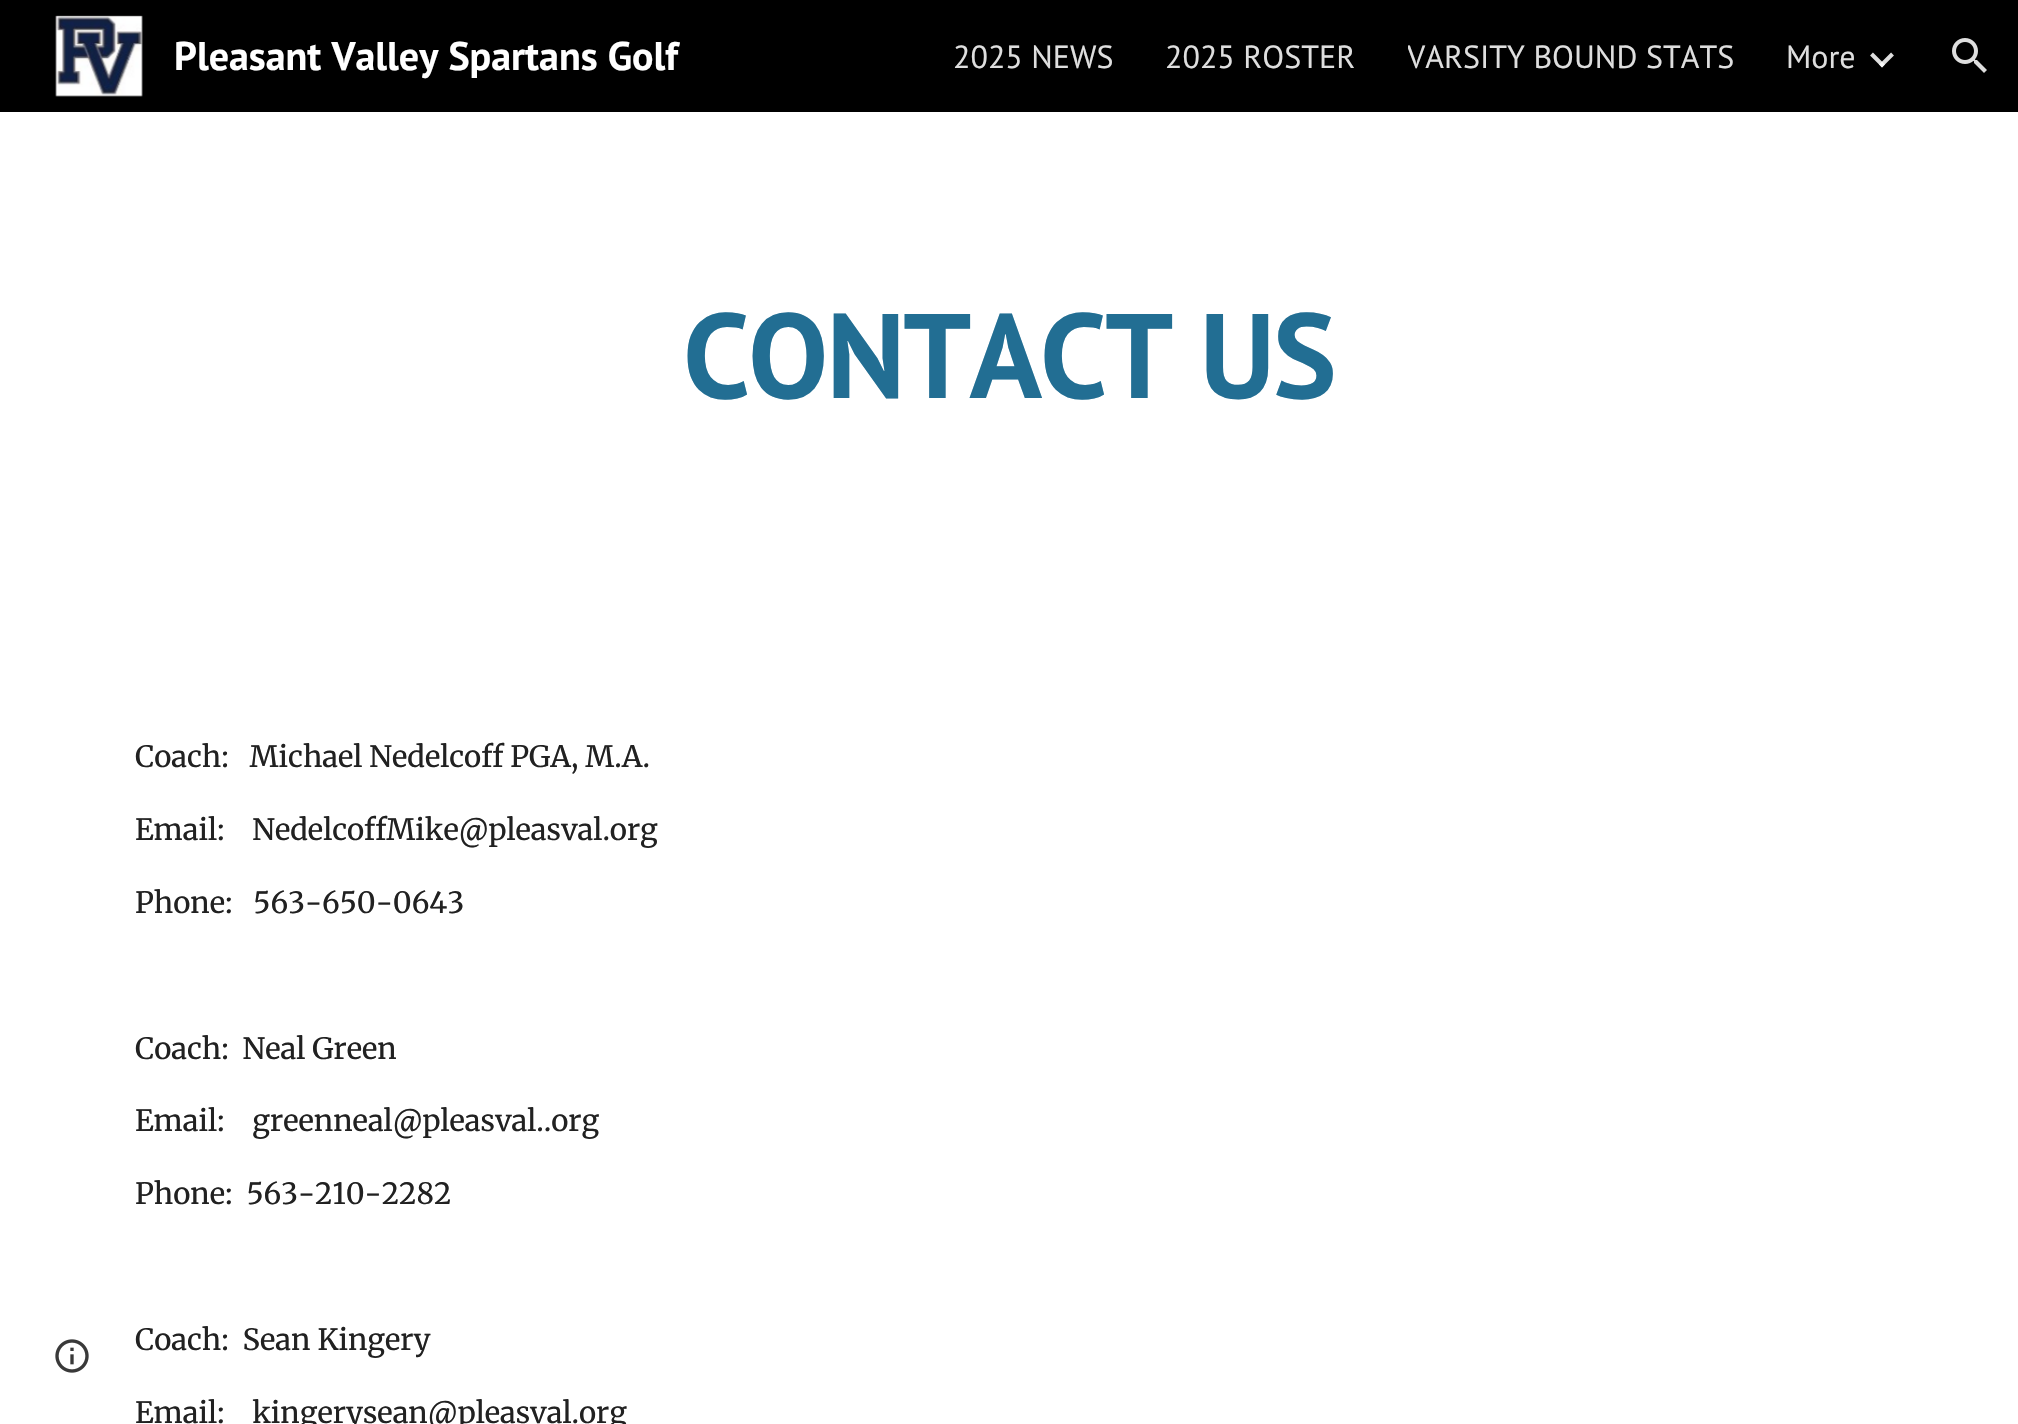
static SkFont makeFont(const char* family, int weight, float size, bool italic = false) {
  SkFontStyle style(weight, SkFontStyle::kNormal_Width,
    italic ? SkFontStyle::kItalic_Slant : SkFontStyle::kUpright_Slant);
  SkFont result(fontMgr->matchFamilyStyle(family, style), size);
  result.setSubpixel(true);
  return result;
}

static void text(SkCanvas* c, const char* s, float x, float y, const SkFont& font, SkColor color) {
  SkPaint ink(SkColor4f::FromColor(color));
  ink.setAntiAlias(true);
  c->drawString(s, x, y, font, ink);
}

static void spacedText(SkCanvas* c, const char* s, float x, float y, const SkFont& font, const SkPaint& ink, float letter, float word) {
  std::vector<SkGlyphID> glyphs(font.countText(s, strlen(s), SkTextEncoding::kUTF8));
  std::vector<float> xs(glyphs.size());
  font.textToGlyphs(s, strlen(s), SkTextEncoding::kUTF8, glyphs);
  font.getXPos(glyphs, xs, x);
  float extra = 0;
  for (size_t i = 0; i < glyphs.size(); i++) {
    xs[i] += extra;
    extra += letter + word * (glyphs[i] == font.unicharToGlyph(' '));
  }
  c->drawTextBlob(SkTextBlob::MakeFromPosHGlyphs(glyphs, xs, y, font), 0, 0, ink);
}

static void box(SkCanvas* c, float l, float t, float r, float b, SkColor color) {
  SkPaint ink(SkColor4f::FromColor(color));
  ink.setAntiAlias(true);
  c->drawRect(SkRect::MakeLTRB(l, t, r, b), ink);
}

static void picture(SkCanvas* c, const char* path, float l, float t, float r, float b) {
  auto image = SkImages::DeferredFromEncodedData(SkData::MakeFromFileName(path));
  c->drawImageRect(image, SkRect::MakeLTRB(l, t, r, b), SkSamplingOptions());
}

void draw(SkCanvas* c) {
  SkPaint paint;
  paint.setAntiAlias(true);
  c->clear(0xffffffff);
  box(c, 0, 0, 2018, 112, 0xff000000);
  picture(c, "img_01.png", 55, 15, 143, 97);
  SkFont face1 = makeFont("PT Sans", 700, 40);
  text(c, "Pleasant Valley Spartans Golf", 174, 70, face1, 0xffffffff);
  SkFont face2 = makeFont("PT Sans", 400, 32);
  text(c, "2025 NEWS", 953, 68, face2, 0xffdedede);
  text(c, "2025 ROSTER", 1165, 68, face2, 0xffdedede);
  c->save();
  c->clipRect(SkRect::MakeLTRB(1408, 36, 1734, 76));
  text(c, "VARSITY BOUND", 1407, 68, face2, 0xffdedede);
  c->restore();
  text(c, "STATS", 1646, 68, face2, 0xffdedede);
  text(c, "More", 1786, 68, face2, 0xffdedede);
  paint.setStyle(SkPaint::kStroke_Style);
  paint.setStrokeWidth(4);
  paint.setColor(0xffdedede);
  c->drawPath(SkPathBuilder().moveTo(1871.5f, 54).lineTo(1883.5f, 66).detach(), paint);
  paint.setColor(0xdeffffff);
  c->drawPath(SkPathBuilder().moveTo(1880.5f, 66).lineTo(1892.5f, 54).detach(), paint);
  picture(c, "img_02.png", 1952, 38, 1987, 73);
  picture(c, "img_03.png", 55, 1339, 89, 1373);
  SkFont face3 = makeFont("PT Sans", 700, 120);
  paint.setStyle(SkPaint::kFill_Style);
  paint.setColor(0xff226e93);
  spacedText(c, "CONTACT US", 683, 398, face3, paint, -2, 0);
  SkFont face4 = makeFont("Merriweather", 400, 29.3f);
  text(c, "Coach:   Michael Nedelcoff PGA, M.A.", 135, 767, face4, 0xff212121);
  text(c, "Email:    NedelcoffMike@pleasval.org", 135, 840, face4, 0xff212121);
  text(c, "Phone:   563-650-0643", 135, 913, face4, 0xff212121);
  text(c, "Coach:  Neal Green", 135, 1059, face4, 0xff212121);
  text(c, "Email:    greenneal@pleasval..org", 135, 1131, face4, 0xff212121);
  text(c, "Phone:  563-210-2282", 135, 1204, face4, 0xff212121);
  text(c, "Coach:  Sean Kingery", 135, 1350, face4, 0xff212121);
  text(c, "Email:    kingerysean@pleasval.org", 135, 1423, face4, 0xff212121);
}
